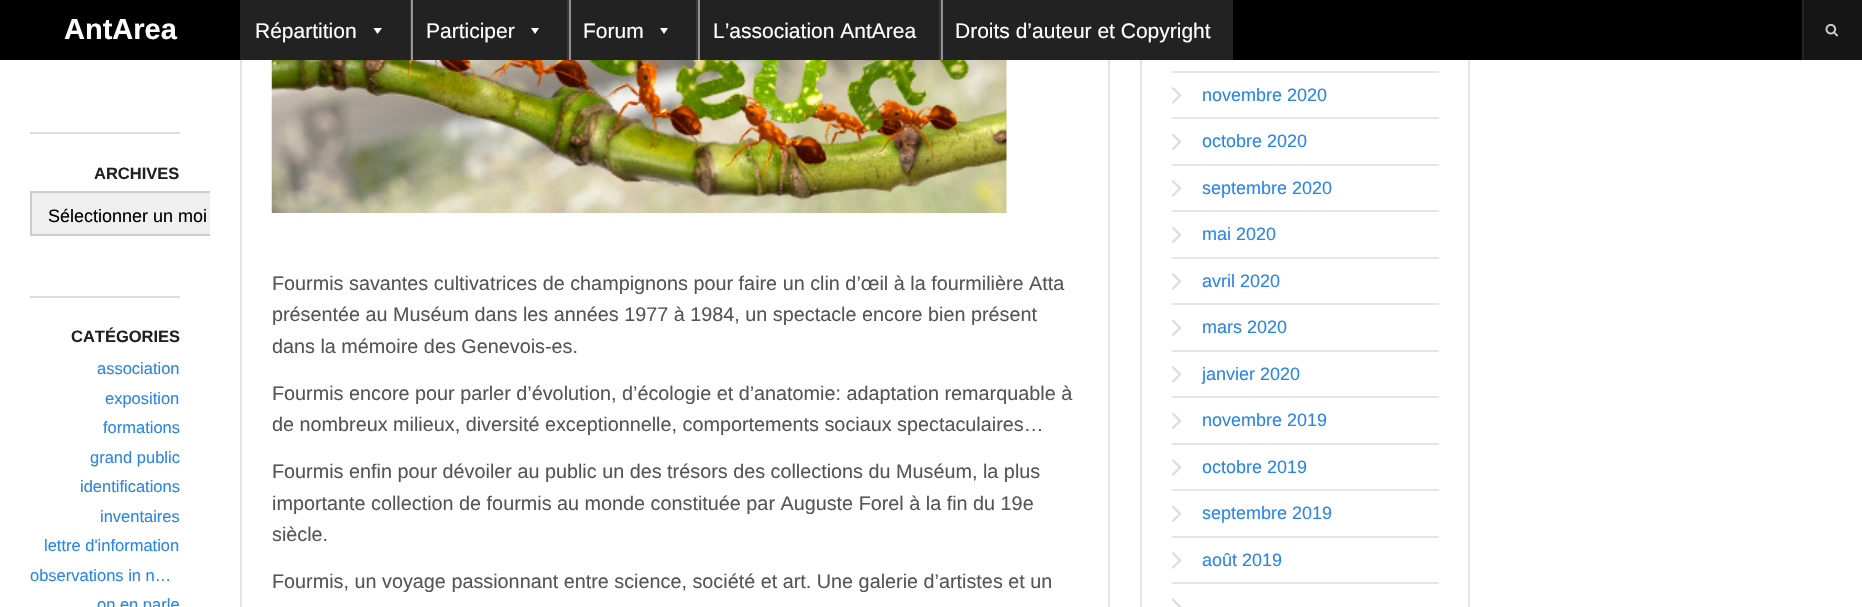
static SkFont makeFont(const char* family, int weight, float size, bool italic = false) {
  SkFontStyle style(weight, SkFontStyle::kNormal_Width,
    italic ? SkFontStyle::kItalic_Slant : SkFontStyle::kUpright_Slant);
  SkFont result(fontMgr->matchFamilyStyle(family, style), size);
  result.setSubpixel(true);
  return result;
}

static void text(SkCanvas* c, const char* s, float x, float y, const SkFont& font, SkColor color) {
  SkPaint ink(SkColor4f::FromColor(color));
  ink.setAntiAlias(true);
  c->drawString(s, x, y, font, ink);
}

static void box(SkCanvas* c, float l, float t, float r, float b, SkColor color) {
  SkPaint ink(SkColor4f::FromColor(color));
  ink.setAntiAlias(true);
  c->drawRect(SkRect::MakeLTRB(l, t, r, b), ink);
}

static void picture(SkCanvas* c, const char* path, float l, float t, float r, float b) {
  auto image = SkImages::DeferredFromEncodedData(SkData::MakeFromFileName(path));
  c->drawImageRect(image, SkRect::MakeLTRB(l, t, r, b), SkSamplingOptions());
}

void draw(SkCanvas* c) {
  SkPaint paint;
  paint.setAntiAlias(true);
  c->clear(0xffffffff);
  box(c, 32, 193, 210, 234, 0xffefefef);
  c->save();
  c->clipRect(SkRect::MakeLTRB(0, 102, 210, 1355));
  paint.setStyle(SkPaint::kStroke_Style);
  paint.setStrokeWidth(2);
  paint.setColor(0xffcccccc);
  c->drawRect(SkRect::MakeLTRB(31, 192, 299, 235), paint);
  c->restore();
  paint.setColor(0xffe5e5e5);
  c->drawRect(SkRect::MakeLTRB(241, -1, 1109, 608), paint);
  c->drawRect(SkRect::MakeLTRB(1141, -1, 1469, 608), paint);
  box(c, 0, 0, 1802, 60, 0xff000000);
  SkFont face1 = makeFont("Liberation Sans", 700, 29);
  text(c, "AntArea", 64, 39, face1, 0xffffffff);
  box(c, 240, 0, 1233, 60, 0xff222222);
  SkFont face2 = makeFont("Liberation Sans", 400, 21);
  text(c, "Répartition", 255, 38, face2, 0xffffffff);
  paint.setStyle(SkPaint::kFill_Style);
  paint.setColor(0xffffffff);
  c->drawPath(SkPathBuilder().moveTo(382, 28).lineTo(377.5f, 34).lineTo(373.5f, 28).close().detach(), paint);
  box(c, 411, 0, 413, 60, 0xff919191);
  box(c, 410, 0, 412, 60, 0x1affffff);
  text(c, "Participer", 426, 38, face2, 0xffffffff);
  c->drawPath(SkPathBuilder().moveTo(539, 28).lineTo(535, 34).lineTo(531, 28).close().detach(), paint);
  box(c, 569, 0, 571, 60, 0xff919191);
  box(c, 567, 0, 569, 60, 0xff383838);
  text(c, "Forum", 583, 38, face2, 0xffffffff);
  c->drawPath(SkPathBuilder().moveTo(668, 28).lineTo(664, 34).lineTo(660, 28).close().detach(), paint);
  box(c, 698, 0, 700, 60, 0xff919191);
  box(c, 696, 0, 698, 60, 0xff383838);
  text(c, "L’association AntArea", 713, 38, face2, 0xffffffff);
  box(c, 941, 0, 943, 60, 0xff919191);
  box(c, 939, 0, 941, 60, 0xff383838);
  text(c, "Droits d’auteur et Copyright", 955, 38, face2, 0xffffffff);
  box(c, 1804, 0, 1862, 60, 0xff151515);
  box(c, 1802, 0, 1804, 60, 0xff252525);
  picture(c, "img_01.png", 1825, 23, 1838, 37);
  box(c, 30, 132, 180, 134, 0xffdddddd);
  SkFont face3 = makeFont("Liberation Sans", 700, 16.5f);
  text(c, "ARCHIVES", 94, 179, face3, 0xff212121);
  SkFont face4 = makeFont("Liberation Sans", 400, 18);
  text(c, "Sélectionner un moi", 48, 222, face4, 0xff000000);
  box(c, 30, 296, 180, 298, 0xffdddddd);
  text(c, "CATÉGORIES", 71, 342, face3, 0xff212121);
  SkFont face5 = makeFont("Liberation Sans", 400, 16.5f);
  text(c, "association", 97, 374, face5, 0xff2985e8);
  text(c, "exposition", 105, 404, face5, 0xff2985e8);
  text(c, "formations", 103, 433, face5, 0xff2985e8);
  text(c, "grand public", 90, 463, face5, 0xff2985e8);
  text(c, "identifications", 80, 492, face5, 0xff2985e8);
  text(c, "inventaires", 100, 522, face5, 0xff2985e8);
  text(c, "lettre d'information", 44, 551, face5, 0xff2985e8);
  text(c, "observations in n…", 30, 581, face5, 0xff2985e8);
  text(c, "on en parle", 97, 610, face5, 0xff2985e8);
  picture(c, "img_02.png", 271, 60, 1007, 213);
  SkFont face6 = makeFont("Liberation Sans", 400, 19.8f);
  text(c, "Fourmis savantes cultivatrices de champignons pour faire un clin d’œil à la fourmilière Atta", 272, 290, face6, 0xff555555);
  text(c, "présentée au Muséum dans les années 1977 à 1984, un spectacle encore bien présent", 272, 321, face6, 0xff555555);
  text(c, "dans la mémoire des Genevois-es.", 272, 353, face6, 0xff555555);
  text(c, "Fourmis encore pour parler d’évolution, d’écologie et d’anatomie: adaptation remarquable à", 272, 400, face6, 0xff555555);
  text(c, "de nombreux milieux, diversité exceptionnelle, comportements sociaux spectaculaires…", 272, 431, face6, 0xff555555);
  text(c, "Fourmis enfin pour dévoiler au public un des trésors des collections du Muséum, la plus", 272, 478, face6, 0xff555555);
  text(c, "importante collection de fourmis au monde constituée par Auguste Forel à la fin du 19e", 272, 510, face6, 0xff555555);
  text(c, "siècle.", 272, 541, face6, 0xff555555);
  text(c, "Fourmis, un voyage passionnant entre science, société et art. Une galerie d’artistes et un", 272, 588, face6, 0xff555555);
  box(c, 1172, 71, 1439, 73, 0xffe5e5e5);
  picture(c, "img_03.png", 1172, 87, 1182, 104);
  text(c, "novembre 2020", 1202, 101, face4, 0xff2985e8);
  box(c, 1172, 117, 1439, 119, 0xffe5e5e5);
  picture(c, "img_04.png", 1172, 133, 1182, 150);
  text(c, "octobre 2020", 1202, 147, face4, 0xff2985e8);
  box(c, 1172, 164, 1439, 166, 0xffe5e5e5);
  picture(c, "img_03.png", 1172, 180, 1182, 197);
  text(c, "septembre 2020", 1202, 194, face4, 0xff2985e8);
  box(c, 1172, 210, 1439, 212, 0xffe5e5e5);
  picture(c, "img_04.png", 1172, 226, 1182, 243);
  text(c, "mai 2020", 1202, 240, face4, 0xff2985e8);
  box(c, 1172, 257, 1439, 259, 0xffe5e5e5);
  picture(c, "img_03.png", 1172, 273, 1182, 290);
  text(c, "avril 2020", 1202, 287, face4, 0xff2985e8);
  box(c, 1172, 303, 1439, 305, 0xffe5e5e5);
  picture(c, "img_04.png", 1172, 319, 1182, 336);
  text(c, "mars 2020", 1202, 333, face4, 0xff2985e8);
  box(c, 1172, 350, 1439, 352, 0xffe5e5e5);
  picture(c, "img_03.png", 1172, 366, 1182, 383);
  text(c, "janvier 2020", 1202, 380, face4, 0xff2985e8);
  box(c, 1172, 396, 1439, 398, 0xffe5e5e5);
  picture(c, "img_04.png", 1172, 412, 1182, 429);
  text(c, "novembre 2019", 1202, 426, face4, 0xff2985e8);
  box(c, 1172, 443, 1439, 445, 0xffe5e5e5);
  picture(c, "img_03.png", 1172, 459, 1182, 476);
  text(c, "octobre 2019", 1202, 473, face4, 0xff2985e8);
  box(c, 1172, 489, 1439, 491, 0xffe5e5e5);
  picture(c, "img_04.png", 1172, 505, 1182, 522);
  text(c, "septembre 2019", 1202, 519, face4, 0xff2985e8);
  box(c, 1172, 536, 1439, 538, 0xffe5e5e5);
  picture(c, "img_03.png", 1172, 552, 1182, 569);
  text(c, "août 2019", 1202, 566, face4, 0xff2985e8);
  box(c, 1172, 582, 1439, 584, 0xffe5e5e5);
  picture(c, "img_05.png", 1172, 598, 1182, 607);
}
